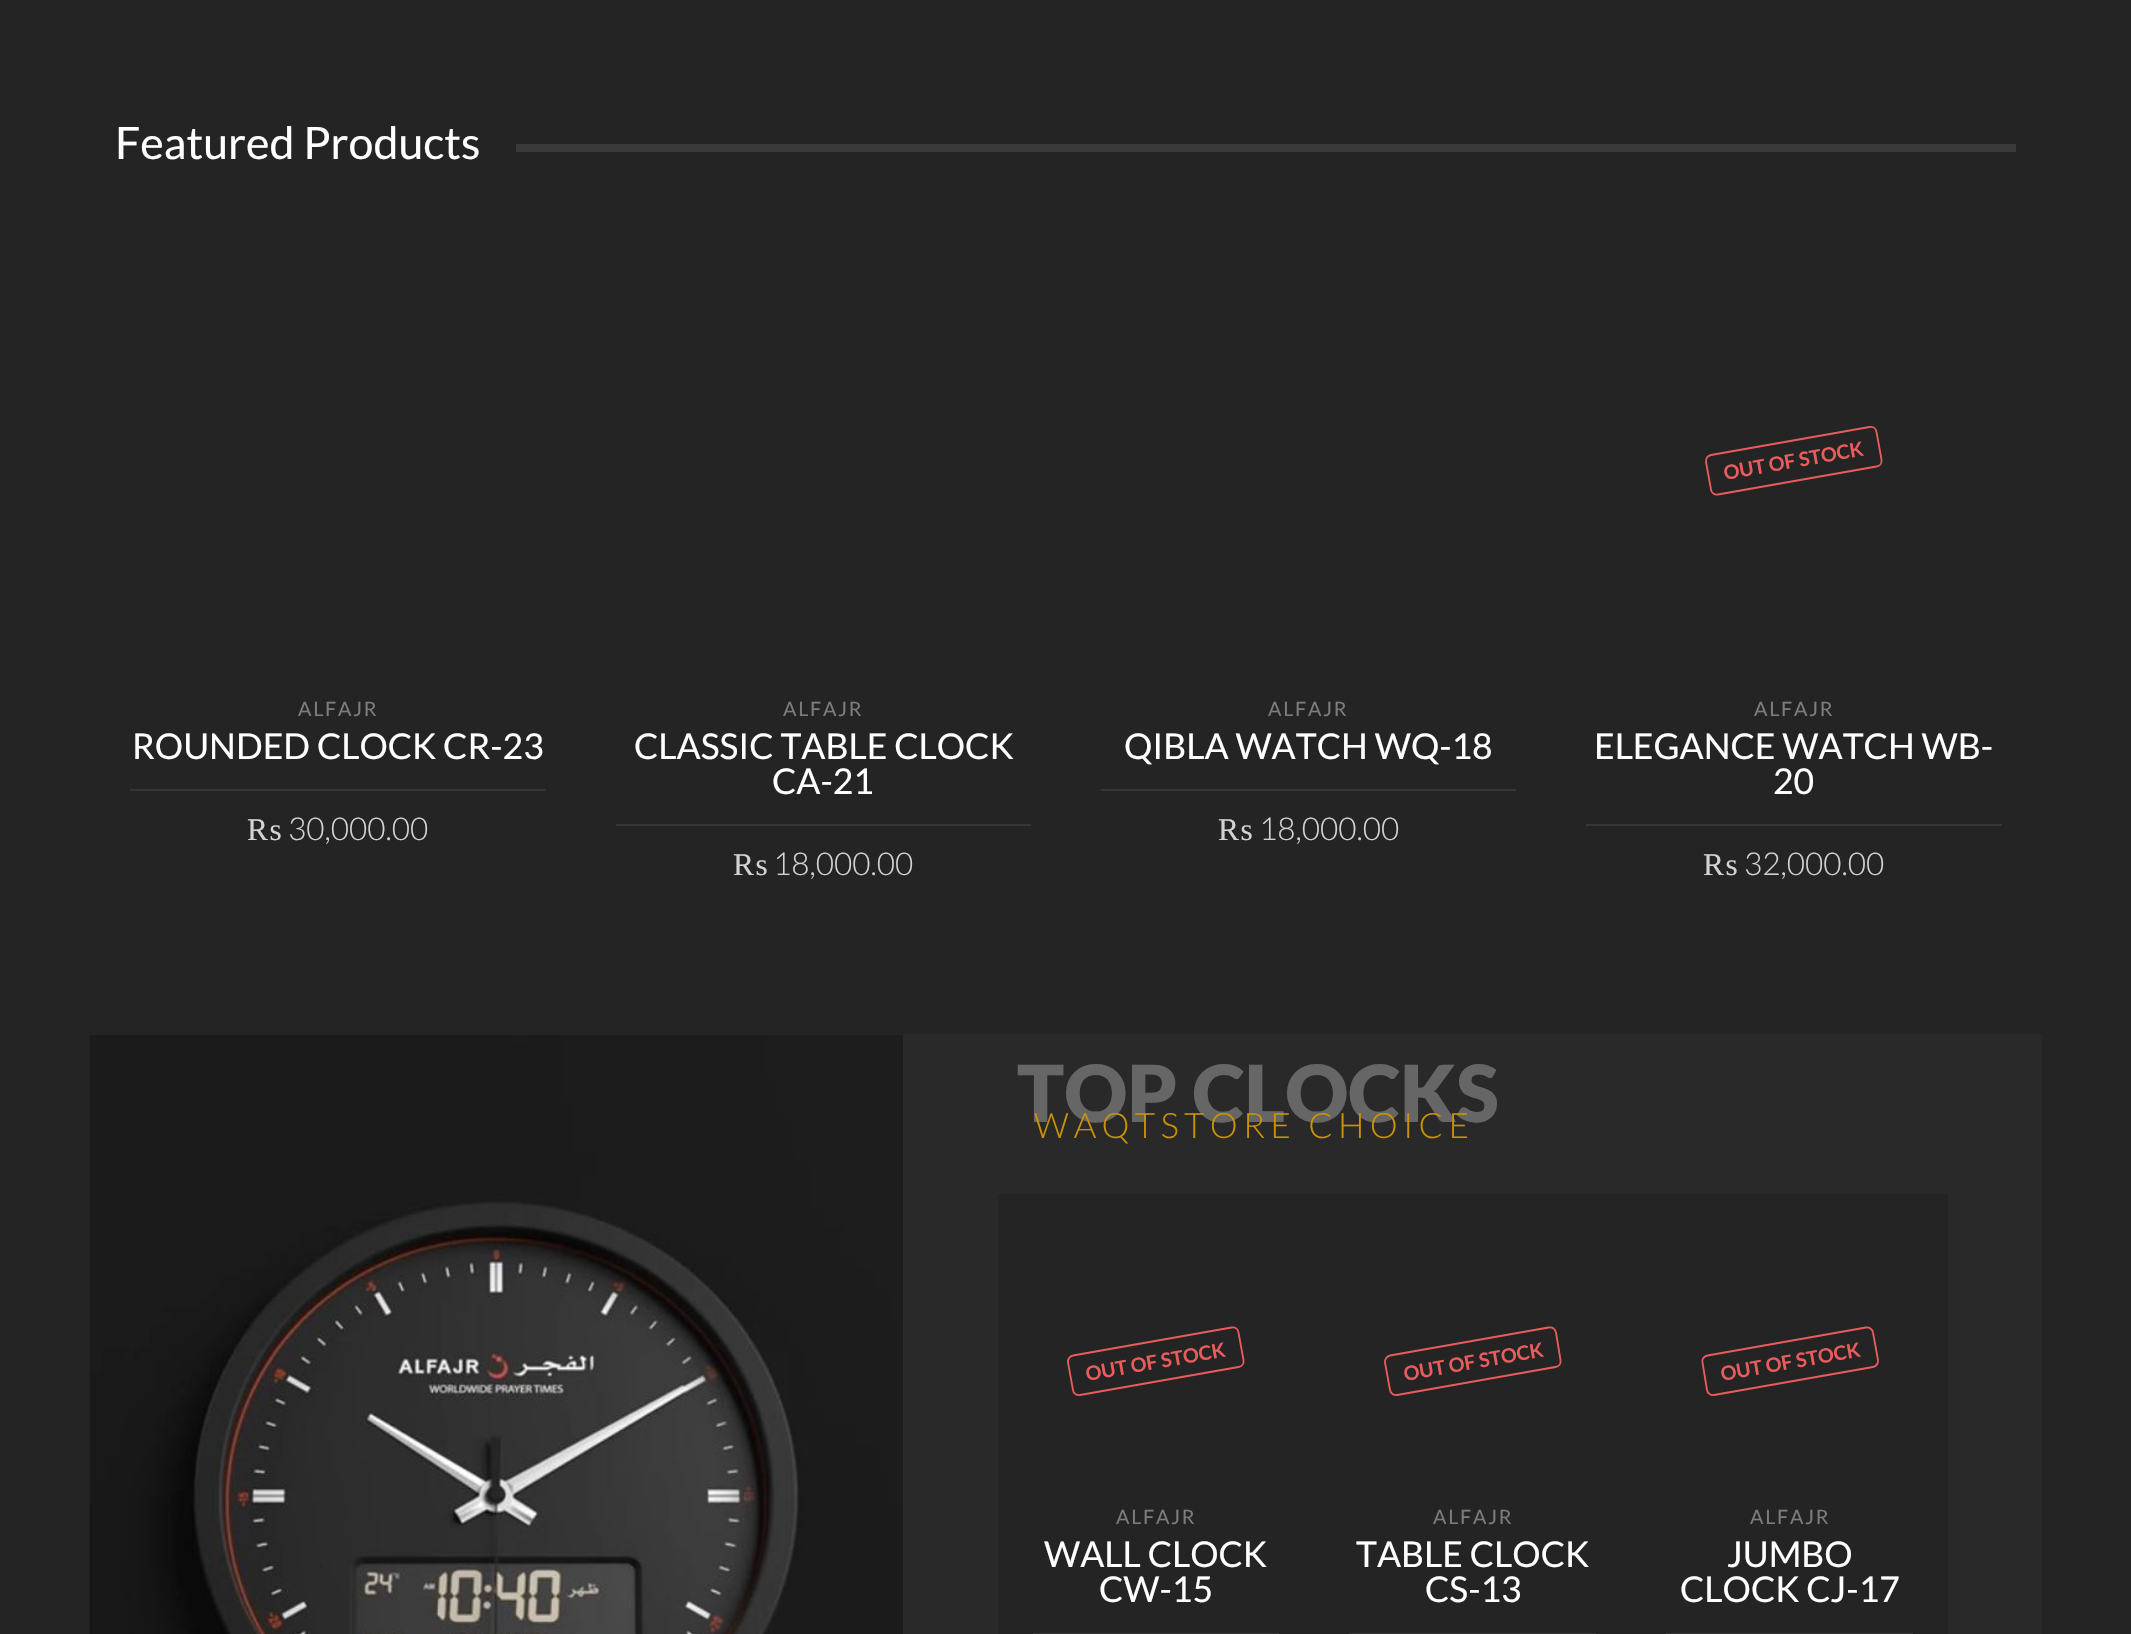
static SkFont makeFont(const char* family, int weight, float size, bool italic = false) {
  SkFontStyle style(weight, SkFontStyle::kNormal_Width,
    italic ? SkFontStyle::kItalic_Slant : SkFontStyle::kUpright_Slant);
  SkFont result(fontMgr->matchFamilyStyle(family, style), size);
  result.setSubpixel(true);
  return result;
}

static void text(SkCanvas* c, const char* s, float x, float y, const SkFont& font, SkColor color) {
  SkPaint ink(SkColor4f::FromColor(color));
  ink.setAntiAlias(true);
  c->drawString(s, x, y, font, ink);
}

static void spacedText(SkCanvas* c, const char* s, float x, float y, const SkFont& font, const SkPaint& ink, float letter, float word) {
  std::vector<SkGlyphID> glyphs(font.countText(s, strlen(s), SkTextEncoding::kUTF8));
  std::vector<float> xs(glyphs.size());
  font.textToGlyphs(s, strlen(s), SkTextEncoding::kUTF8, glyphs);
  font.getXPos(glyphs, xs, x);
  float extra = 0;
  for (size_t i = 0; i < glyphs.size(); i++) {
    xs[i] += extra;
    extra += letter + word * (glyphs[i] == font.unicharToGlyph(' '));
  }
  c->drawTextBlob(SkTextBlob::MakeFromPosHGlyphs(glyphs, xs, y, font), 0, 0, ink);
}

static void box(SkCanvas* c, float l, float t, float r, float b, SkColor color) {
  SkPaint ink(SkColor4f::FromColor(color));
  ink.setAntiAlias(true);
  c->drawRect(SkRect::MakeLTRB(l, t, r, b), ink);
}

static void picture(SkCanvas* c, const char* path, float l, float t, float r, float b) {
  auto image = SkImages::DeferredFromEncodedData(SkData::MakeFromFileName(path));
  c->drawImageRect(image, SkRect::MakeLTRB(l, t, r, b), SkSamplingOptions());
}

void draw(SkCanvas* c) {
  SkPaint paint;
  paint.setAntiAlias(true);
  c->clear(0xff242424);
  SkFont face1 = makeFont("Lato", 400, 44.75f);
  text(c, "Featured Products", 115, 159, face1, 0xffffffff);
  box(c, 516, 144, 2016, 152, 0xff3a3a3a);
  SkFont face2 = makeFont("Lato", 400, 19.75f);
  paint.setColor(0xff7c7c7c);
  spacedText(c, "ALFAJR", 298, 716, face2, paint, 1.75f, 0);
  SkFont face3 = makeFont("Lato", 400, 35.5f);
  text(c, "ROUNDED CLOCK CR-23", 132, 759, face3, 0xffffffff);
  box(c, 130, 789, 546, 791, 0xff363636);
  SkFont face4 = makeFont("Liberation Serif", 400, 31.5f);
  text(c, "₨", 247, 840, face4, 0xffd3d3d3);
  SkFont face5 = makeFont("Lato", 300, 31.5f);
  text(c, "30,000.00", 288, 840, face5, 0xffd3d3d3);
  spacedText(c, "ALFAJR", 783, 716, face2, paint, 1.75f, 0);
  text(c, "CLASSIC TABLE CLOCK", 634, 759, face3, 0xffffffff);
  text(c, "CA-21", 772, 794, face3, 0xffffffff);
  box(c, 616, 824, 1031, 826, 0xff363636);
  text(c, "₨", 733, 875, face4, 0xffd3d3d3);
  text(c, "18,000.00", 773, 875, face5, 0xffd3d3d3);
  spacedText(c, "ALFAJR", 1268, 716, face2, paint, 1.75f, 0);
  text(c, "QIBLA WATCH WQ-18", 1124, 759, face3, 0xffffffff);
  box(c, 1101, 789, 1516, 791, 0xff363636);
  text(c, "₨", 1218, 840, face4, 0xffd3d3d3);
  text(c, "18,000.00", 1259, 840, face5, 0xffd3d3d3);
  paint.setStyle(SkPaint::kStroke_Style);
  paint.setStrokeWidth(1.8f);
  paint.setColor(0xffea5c5c);
  c->drawPath(SkPathBuilder().moveTo(1711, 455).lineTo(1869.5f, 427).cubicTo(1873, 426.5f, 1876, 428.5f, 1876.5f, 432).lineTo(1881.5f, 459.5f).cubicTo(1882, 463, 1880, 466, 1876.5f, 466.5f).lineTo(1718, 494.5f).cubicTo(1714.5f, 495, 1711.5f, 493, 1711, 489.5f).lineTo(1706, 462).cubicTo(1705.5f, 459, 1707.5f, 455.5f, 1711, 455).close().detach(), paint);
  SkFont face6 = makeFont("Lato", 700, 19.75f);
  c->save();
  c->rotate(-10, 1725, 480);
  text(c, "OUT OF STOCK", 1725, 480, face6, 0xffea5c5c);
  c->restore();
  paint.setStyle(SkPaint::kFill_Style);
  paint.setColor(0xff7c7c7c);
  spacedText(c, "ALFAJR", 1754, 716, face2, paint, 1.75f, 0);
  text(c, "ELEGANCE WATCH WB-", 1594, 759, face3, 0xffffffff);
  text(c, "20", 1773, 794, face3, 0xffffffff);
  box(c, 1586, 824, 2002, 826, 0xff363636);
  text(c, "₨", 1703, 875, face4, 0xffd3d3d3);
  text(c, "32,000.00", 1744, 875, face5, 0xffd3d3d3);
  box(c, 89, 1034, 2042, 1634, 0xff292929);
  picture(c, "img_01.png", 89, 1034, 903, 1634);
  SkFont face7 = makeFont("Lato", 900, 78.75f);
  text(c, "TOP CLOCKS", 1017, 1122, face7, 0xff666666);
  SkFont face8 = makeFont("Lato", 300, 35);
  paint.setColor(0xffcb9300);
  spacedText(c, "WAQTSTORE CHOICE", 1034, 1138, face8, paint, 5.25f, 0);
  box(c, 998, 1194, 1948, 1634, 0xff242424);
  paint.setStyle(SkPaint::kStroke_Style);
  paint.setColor(0xffea5c5c);
  c->drawPath(SkPathBuilder().moveTo(1073, 1355.5f).lineTo(1231.5f, 1327.5f).cubicTo(1235, 1327, 1238, 1329, 1238.5f, 1332.5f).lineTo(1243.5f, 1360).cubicTo(1244, 1363.5f, 1242, 1366.5f, 1238.5f, 1367).lineTo(1080, 1395).cubicTo(1076.5f, 1395.5f, 1073.5f, 1393.5f, 1073, 1390).lineTo(1068, 1362.5f).cubicTo(1067.5f, 1359.5f, 1069.5f, 1356, 1073, 1355.5f).close().detach(), paint);
  c->save();
  c->rotate(-10, 1087, 1381);
  text(c, "OUT OF STOCK", 1087, 1381, face6, 0xffea5c5c);
  c->restore();
  paint.setStyle(SkPaint::kFill_Style);
  paint.setColor(0xff7c7c7c);
  spacedText(c, "ALFAJR", 1116, 1524, face2, paint, 1.75f, 0);
  text(c, "WALL CLOCK", 1044, 1567, face3, 0xffffffff);
  text(c, "CW-15", 1099, 1602, face3, 0xffffffff);
  box(c, 1033, 1633, 1279, 1634, 0xff363636);
  paint.setStyle(SkPaint::kStroke_Style);
  paint.setColor(0xffea5c5c);
  c->drawPath(SkPathBuilder().moveTo(1390, 1355.5f).lineTo(1548.5f, 1327.5f).cubicTo(1552, 1327, 1555, 1329, 1556, 1332.5f).lineTo(1560.5f, 1360).cubicTo(1561, 1363.5f, 1559, 1366.5f, 1555.5f, 1367).lineTo(1397, 1395).cubicTo(1394, 1395.5f, 1390.5f, 1393.5f, 1390, 1390).lineTo(1385, 1362.5f).cubicTo(1384.5f, 1359.5f, 1387, 1356, 1390, 1355.5f).close().detach(), paint);
  c->save();
  c->rotate(-10, 1405, 1381);
  text(c, "OUT OF STOCK", 1405, 1381, face6, 0xffea5c5c);
  c->restore();
  paint.setStyle(SkPaint::kFill_Style);
  paint.setColor(0xff7c7c7c);
  spacedText(c, "ALFAJR", 1433, 1524, face2, paint, 1.75f, 0);
  text(c, "TABLE CLOCK", 1356, 1567, face3, 0xffffffff);
  text(c, "CS-13", 1425, 1602, face3, 0xffffffff);
  box(c, 1349, 1633, 1596, 1634, 0xff363636);
  paint.setStyle(SkPaint::kStroke_Style);
  paint.setColor(0xffea5c5c);
  c->drawPath(SkPathBuilder().moveTo(1707.5f, 1355.5f).lineTo(1866, 1327.5f).cubicTo(1869, 1327, 1872.5f, 1329, 1873, 1332.5f).lineTo(1878, 1360).cubicTo(1878.5f, 1363.5f, 1876, 1366.5f, 1873, 1367).lineTo(1714, 1395).cubicTo(1711, 1395.5f, 1707.5f, 1393.5f, 1707, 1390).lineTo(1702.5f, 1362.5f).cubicTo(1701.5f, 1359.5f, 1704, 1356, 1707.5f, 1355.5f).close().detach(), paint);
  c->save();
  c->rotate(-10, 1722, 1381);
  text(c, "OUT OF STOCK", 1722, 1381, face6, 0xffea5c5c);
  c->restore();
  paint.setStyle(SkPaint::kFill_Style);
  paint.setColor(0xff7c7c7c);
  spacedText(c, "ALFAJR", 1750, 1524, face2, paint, 1.75f, 0);
  text(c, "JUMBO", 1727, 1567, face3, 0xffffffff);
  text(c, "CLOCK CJ-17", 1680, 1602, face3, 0xffffffff);
  box(c, 1666, 1633, 1913, 1634, 0xff363636);
}
